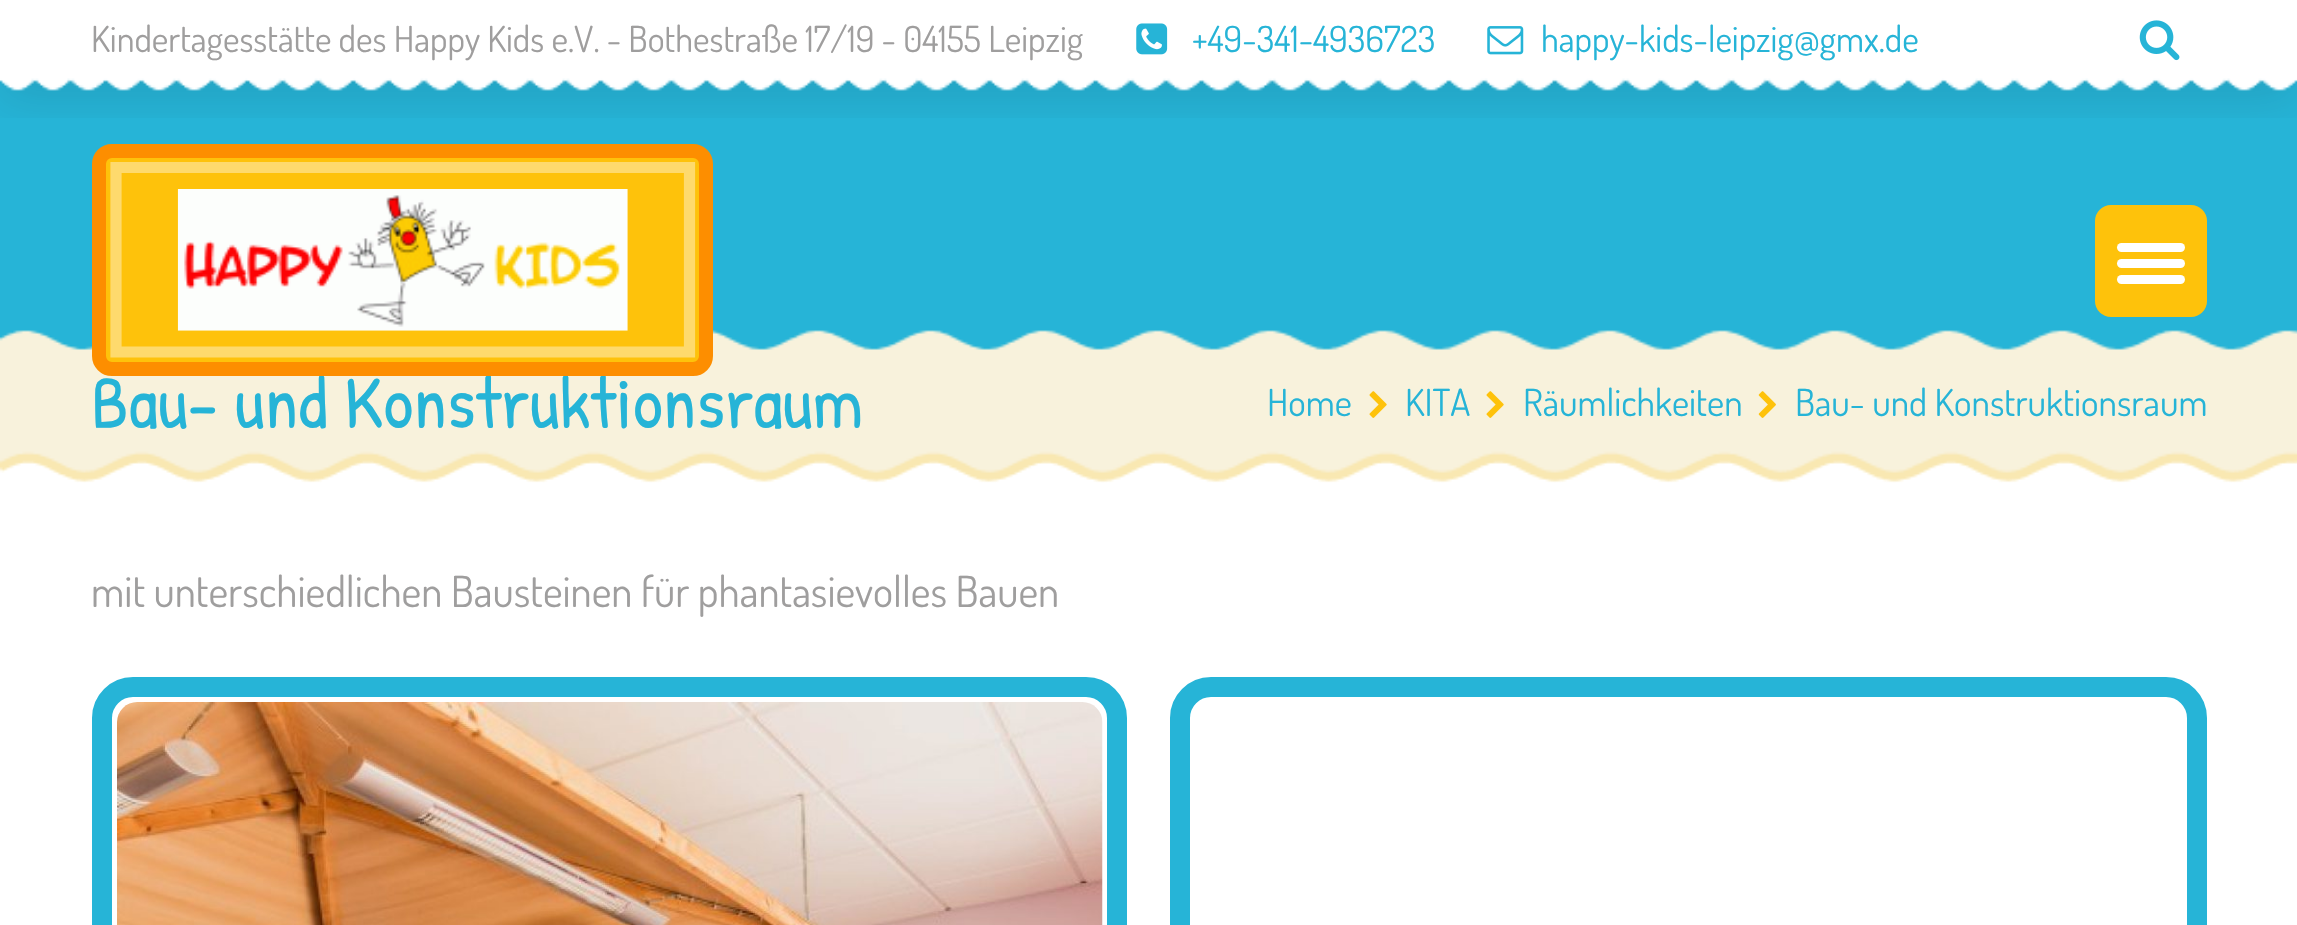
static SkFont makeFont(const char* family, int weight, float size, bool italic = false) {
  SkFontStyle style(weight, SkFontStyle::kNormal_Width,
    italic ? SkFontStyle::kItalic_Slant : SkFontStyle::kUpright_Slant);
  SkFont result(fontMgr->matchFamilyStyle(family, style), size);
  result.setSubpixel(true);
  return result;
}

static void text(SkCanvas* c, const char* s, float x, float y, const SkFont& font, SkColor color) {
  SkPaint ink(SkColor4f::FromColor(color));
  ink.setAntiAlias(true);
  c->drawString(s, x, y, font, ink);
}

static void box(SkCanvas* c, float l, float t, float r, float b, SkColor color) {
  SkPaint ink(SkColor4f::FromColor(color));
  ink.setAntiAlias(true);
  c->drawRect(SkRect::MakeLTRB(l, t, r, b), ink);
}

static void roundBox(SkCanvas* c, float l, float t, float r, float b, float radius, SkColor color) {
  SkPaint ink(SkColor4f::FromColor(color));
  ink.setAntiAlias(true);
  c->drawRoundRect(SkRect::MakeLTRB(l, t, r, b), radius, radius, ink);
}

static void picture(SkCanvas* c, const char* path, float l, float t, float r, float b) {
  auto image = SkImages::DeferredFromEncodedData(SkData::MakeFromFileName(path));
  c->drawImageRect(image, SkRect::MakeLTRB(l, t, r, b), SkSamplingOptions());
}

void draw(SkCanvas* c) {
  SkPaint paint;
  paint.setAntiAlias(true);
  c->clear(0xffffffff);
  box(c, 0, 78, 2297, 350, 0xff26b4d7);
  picture(c, "img_06.png", 0, 330, 2297, 483);
  SkFont face1 = makeFont("Patrick Hand", 400, 74.4f);
  text(c, "Bau- und Konstruktionsraum", 91, 428, face1, 0xff26b4d7);
  paint.setColor(0xfffec20b);
  c->drawRoundRect(SkRect::MakeLTRB(99, 151, 706, 369), 13, 13, paint);
  paint.setStyle(SkPaint::kStroke_Style);
  paint.setStrokeWidth(14);
  paint.setColor(0xfffd8e00);
  c->drawRoundRect(SkRect::MakeLTRB(99, 151, 706, 369), 13, 13, paint);
  paint.setStrokeWidth(11.2f);
  paint.setColor(0xfffeda6d);
  c->drawPath(SkPathBuilder().moveTo(116, 167.5f).lineTo(689.5f, 167.5f).lineTo(689.5f, 352).lineTo(116, 352).close().detach(), paint);
  c->save();
  c->clipRect(SkRect::MakeLTRB(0, 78, 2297, 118));
  paint.setStyle(SkPaint::kFill_Style);
  paint.setColor(0x1a000000);
  paint.setMaskFilter(SkMaskFilter::MakeBlur(kNormal_SkBlurStyle, 22.5f));
  c->drawRect(SkRect::MakeLTRB(0, 23, 2297, 99), paint);
  paint.setMaskFilter(nullptr);
  c->restore();
  SkFont face2 = makeFont("Dosis", 400, 36);
  text(c, "Kindertagesstätte des Happy Kids e.V. - Bothestraße 17/19 - 04155 Leipzig", 91, 52, face2, 0xff9f9e9e);
  picture(c, "img_01.png", 1136, 23, 1168, 55);
  text(c, "+49-341-4936723", 1192, 52, face2, 0xff26b4d7);
  picture(c, "img_02.png", 1487, 26, 1524, 55);
  text(c, "happy-kids-leipzig@gmx.de", 1541, 52, face2, 0xff26b4d7);
  picture(c, "img_03.png", 2139, 20, 2180, 61);
  picture(c, "img_04.png", 0, 76, 2297, 91);
  picture(c, "img_05.png", 177, 189, 628, 331);
  roundBox(c, 2095, 205, 2207, 317, 16, 0xfffec20b);
  roundBox(c, 2117, 243, 2185, 252, 4.5f, 0xffffffff);
  roundBox(c, 2117, 259, 2185, 268, 4.5f, 0xffffffff);
  roundBox(c, 2117, 275, 2185, 284, 4.5f, 0xffffffff);
  SkFont face3 = makeFont("Dosis", 400, 37.25f);
  text(c, "Home", 1267, 416, face3, 0xff26b4d7);
  picture(c, "img_07.png", 1369, 391, 1387, 418);
  text(c, "KITA", 1405, 416, face3, 0xff26b4d7);
  picture(c, "img_07.png", 1486, 391, 1504, 418);
  text(c, "Räumlichkeiten", 1523, 416, face3, 0xff26b4d7);
  picture(c, "img_08.png", 1758, 391, 1776, 418);
  text(c, "Bau- und Konstruktionsraum", 1795, 416, face3, 0xff26b4d7);
  SkFont face4 = makeFont("Dosis", 400, 42.75f);
  text(c, "mit unterschiedlichen Bausteinen für phantasievolles Bauen", 91, 607, face4, 0xff9f9e9e);
  paint.setStyle(SkPaint::kStroke_Style);
  paint.setStrokeWidth(20);
  paint.setColor(0xff26b4d7);
  c->drawRoundRect(SkRect::MakeLTRB(102, 687, 1117, 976), 31, 31, paint);
  picture(c, "img_09.png", 117, 702, 1103, 925);
  c->drawRoundRect(SkRect::MakeLTRB(1180, 687, 2197, 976), 31, 31, paint);
}
